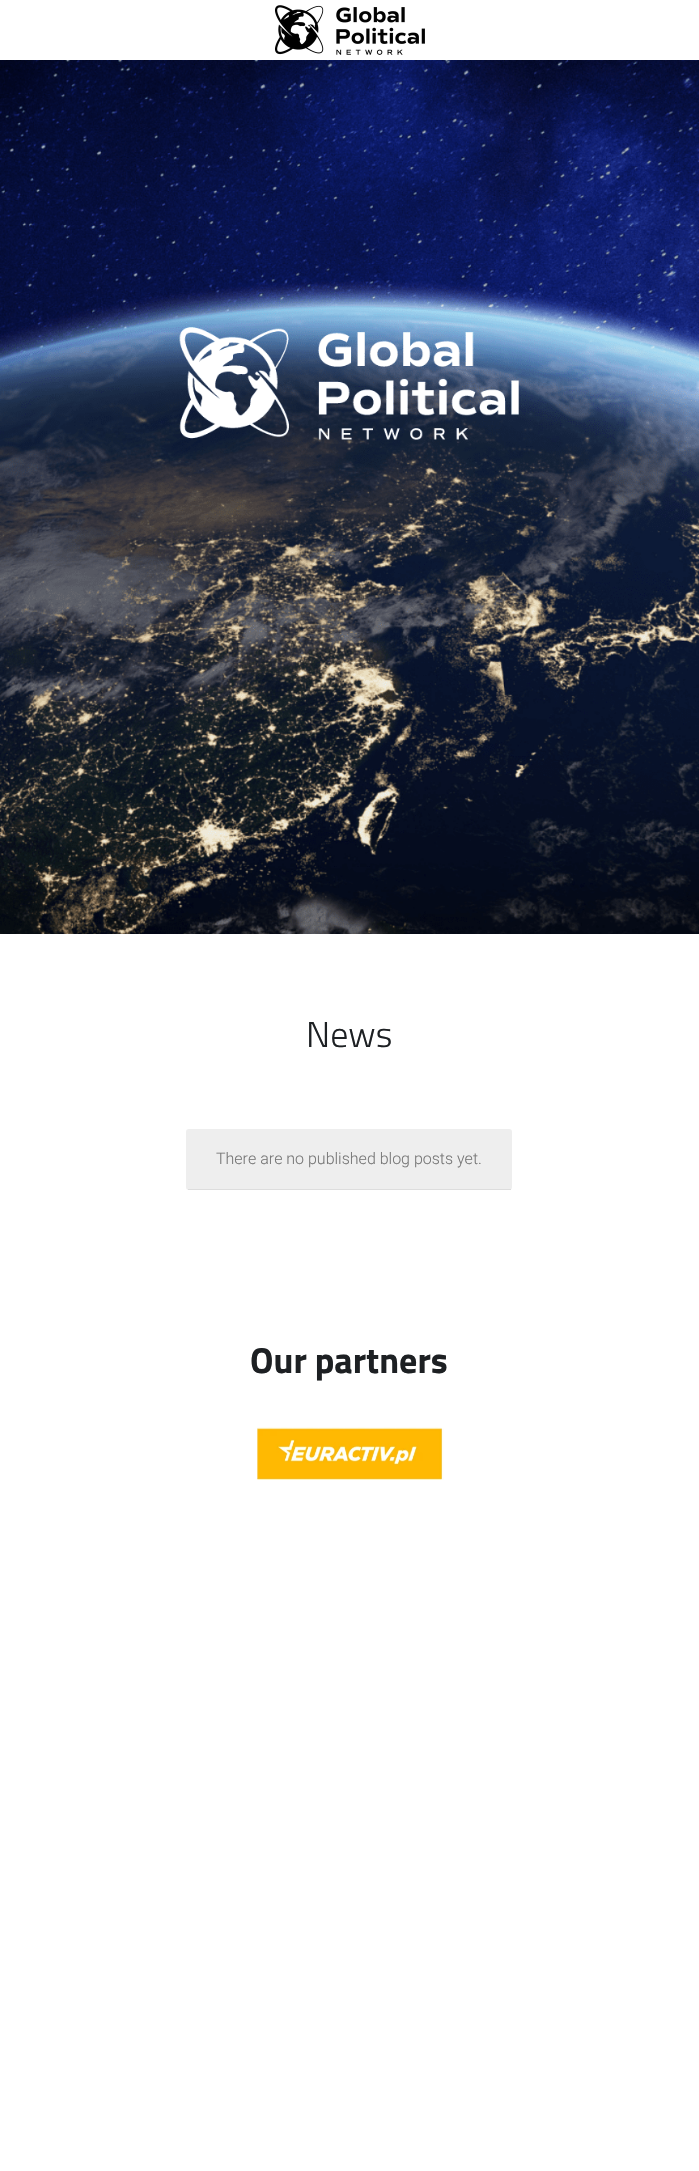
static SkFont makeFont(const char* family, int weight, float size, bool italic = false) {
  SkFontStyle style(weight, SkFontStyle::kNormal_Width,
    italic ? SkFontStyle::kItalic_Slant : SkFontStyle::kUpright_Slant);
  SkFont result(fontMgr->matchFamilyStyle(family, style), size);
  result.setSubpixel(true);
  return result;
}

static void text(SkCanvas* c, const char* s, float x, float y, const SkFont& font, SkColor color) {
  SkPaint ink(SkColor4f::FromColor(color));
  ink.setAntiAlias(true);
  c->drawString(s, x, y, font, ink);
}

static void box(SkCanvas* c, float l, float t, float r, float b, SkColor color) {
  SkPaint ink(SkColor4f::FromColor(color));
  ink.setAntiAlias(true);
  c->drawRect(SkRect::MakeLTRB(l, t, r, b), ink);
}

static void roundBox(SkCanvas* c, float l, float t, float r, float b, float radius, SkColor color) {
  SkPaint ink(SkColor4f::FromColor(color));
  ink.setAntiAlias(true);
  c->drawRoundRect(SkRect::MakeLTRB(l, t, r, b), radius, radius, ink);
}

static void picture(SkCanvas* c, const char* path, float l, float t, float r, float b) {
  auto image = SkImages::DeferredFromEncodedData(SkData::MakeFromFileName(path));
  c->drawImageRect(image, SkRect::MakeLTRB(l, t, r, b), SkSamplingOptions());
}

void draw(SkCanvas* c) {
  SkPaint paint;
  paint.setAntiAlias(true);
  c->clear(0xffffffff);
  picture(c, "img_01.png", 275, 5, 425, 55);
  picture(c, "img_02.png", 0, 60, 699, 934);
  SkFont face1 = makeFont("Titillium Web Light", 300, 36);
  text(c, "News", 306, 1047, face1, 0xff1d2023);
  roundBox(c, 186, 1129, 512, 1190, 3, 0xffeeeeee);
  box(c, 188, 1189, 511, 1190, 0xffdddddd);
  SkFont face2 = makeFont("Roboto", 300, 16);
  text(c, "There are no published blog posts yet.", 216, 1164, face2, 0xff777777);
  SkFont face3 = makeFont("Titillium Web", 700, 36);
  text(c, "Our partners", 250, 1373, face3, 0xff1d2023);
  picture(c, "img_03.png", 257, 1427, 444, 1480);
}
